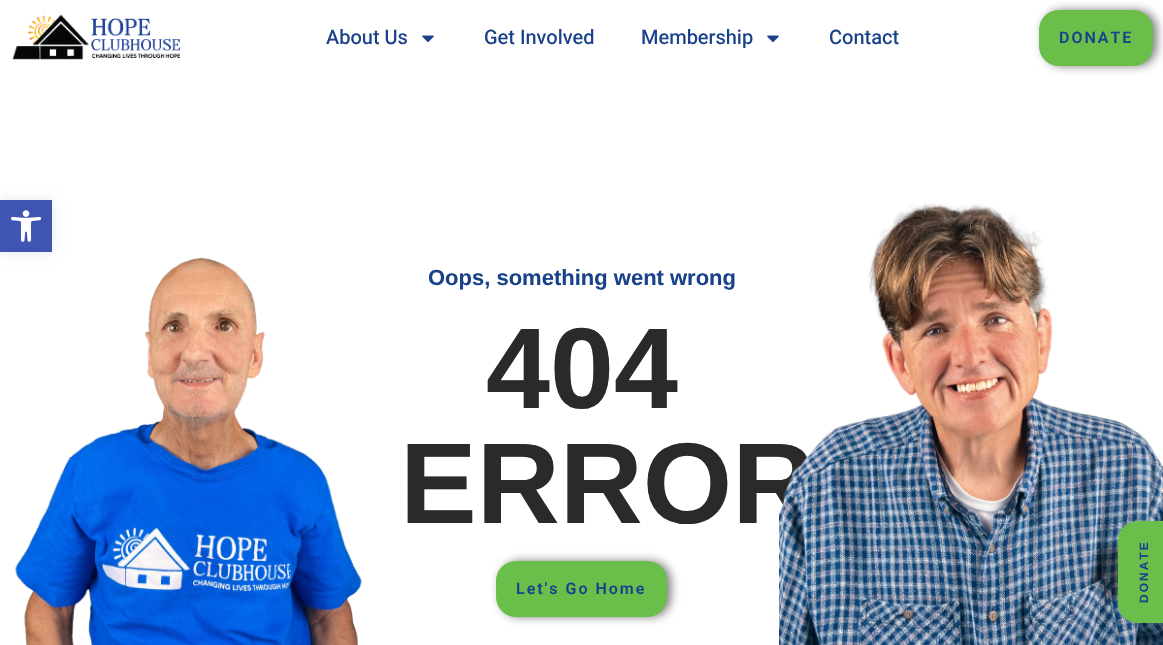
static SkFont makeFont(const char* family, int weight, float size, bool italic = false) {
  SkFontStyle style(weight, SkFontStyle::kNormal_Width,
    italic ? SkFontStyle::kItalic_Slant : SkFontStyle::kUpright_Slant);
  SkFont result(fontMgr->matchFamilyStyle(family, style), size);
  result.setSubpixel(true);
  return result;
}

static void text(SkCanvas* c, const char* s, float x, float y, const SkFont& font, SkColor color) {
  SkPaint ink(SkColor4f::FromColor(color));
  ink.setAntiAlias(true);
  c->drawString(s, x, y, font, ink);
}

static void spacedText(SkCanvas* c, const char* s, float x, float y, const SkFont& font, const SkPaint& ink, float letter, float word) {
  std::vector<SkGlyphID> glyphs(font.countText(s, strlen(s), SkTextEncoding::kUTF8));
  std::vector<float> xs(glyphs.size());
  font.textToGlyphs(s, strlen(s), SkTextEncoding::kUTF8, glyphs);
  font.getXPos(glyphs, xs, x);
  float extra = 0;
  for (size_t i = 0; i < glyphs.size(); i++) {
    xs[i] += extra;
    extra += letter + word * (glyphs[i] == font.unicharToGlyph(' '));
  }
  c->drawTextBlob(SkTextBlob::MakeFromPosHGlyphs(glyphs, xs, y, font), 0, 0, ink);
}

static void box(SkCanvas* c, float l, float t, float r, float b, SkColor color) {
  SkPaint ink(SkColor4f::FromColor(color));
  ink.setAntiAlias(true);
  c->drawRect(SkRect::MakeLTRB(l, t, r, b), ink);
}

static void roundBox(SkCanvas* c, float l, float t, float r, float b, float radius, SkColor color) {
  SkPaint ink(SkColor4f::FromColor(color));
  ink.setAntiAlias(true);
  c->drawRoundRect(SkRect::MakeLTRB(l, t, r, b), radius, radius, ink);
}

static void picture(SkCanvas* c, const char* path, float l, float t, float r, float b) {
  auto image = SkImages::DeferredFromEncodedData(SkData::MakeFromFileName(path));
  c->drawImageRect(image, SkRect::MakeLTRB(l, t, r, b), SkSamplingOptions());
}

void draw(SkCanvas* c) {
  SkPaint paint;
  paint.setAntiAlias(true);
  c->clear(0xffffffff);
  picture(c, "img_01.png", 12, 14, 181, 60);
  SkFont face1 = makeFont("Heebo", 500, 20);
  text(c, "About Us", 326, 44, face1, 0xff1a428a);
  picture(c, "img_02.png", 422, 35, 434, 42);
  text(c, "Get Involved", 484, 44, face1, 0xff1a428a);
  text(c, "Membership", 641, 44, face1, 0xff1a428a);
  picture(c, "img_02.png", 767, 35, 779, 42);
  text(c, "Contact", 829, 44, face1, 0xff1a428a);
  paint.setColor(0x80000000);
  paint.setMaskFilter(SkMaskFilter::MakeBlur(kNormal_SkBlurStyle, 5));
  c->drawRoundRect(SkRect::MakeLTRB(1043, 10, 1157, 66), 20, 20, paint);
  paint.setMaskFilter(nullptr);
  roundBox(c, 1039, 10, 1153, 66, 20, 0xff6abf4b);
  SkFont face2 = makeFont("Heebo", 600, 16);
  paint.setColor(0xff1a428a);
  spacedText(c, "DONATE", 1059, 43, face2, paint, 2, 0);
  picture(c, "img_04.png", 15, 257, 362, 645);
  paint.setColor(0x1a000000);
  paint.setMaskFilter(SkMaskFilter::MakeBlur(kNormal_SkBlurStyle, 5));
  c->drawRect(SkRect::MakeLTRB(0, 200, 52, 252), paint);
  paint.setMaskFilter(nullptr);
  box(c, 0, 200, 52, 252, 0xff4054b2);
  picture(c, "img_03.png", 11, 210, 41, 242);
  SkFont face3 = makeFont("Liberation Sans", 700, 115);
  text(c, "ERROR", 400, 523, face3, 0xff2a2a2a);
  picture(c, "img_05.png", 779, 203, 1163, 645);
  SkFont face4 = makeFont("Liberation Sans", 700, 22);
  text(c, "Oops, something went wrong", 428, 285, face4, 0xff1a428a);
  text(c, "404", 486, 408, face3, 0xff2a2a2a);
  paint.setColor(0x80000000);
  paint.setMaskFilter(SkMaskFilter::MakeBlur(kNormal_SkBlurStyle, 5));
  c->drawRoundRect(SkRect::MakeLTRB(500, 561, 671, 617), 20, 20, paint);
  paint.setMaskFilter(nullptr);
  roundBox(c, 496, 561, 667, 617, 20, 0xff6abf4b);
  paint.setColor(0xff1a428a);
  spacedText(c, "Let's Go Home", 516, 594, face2, paint, 2, 0);
  paint.setColor(0x80000000);
  paint.setMaskFilter(SkMaskFilter::MakeBlur(kNormal_SkBlurStyle, 5));
  c->drawRoundRect(SkRect::MakeLTRB(1096, 546, 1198, 598), 20, 20, paint);
  paint.setMaskFilter(nullptr);
  paint.setColor(0xff6abf4b);
  c->drawPath(SkPathBuilder().moveTo(1118, 603).lineTo(1118, 541).cubicTo(1118, 530, 1127, 521, 1138, 521).lineTo(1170, 521).lineTo(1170, 623).lineTo(1138, 623).cubicTo(1127, 623, 1118, 614, 1118, 603).close().detach(), paint);
  SkFont face5 = makeFont("Liberation Sans", 700, 12);
  paint.setColor(0xff1a428a);
  c->save();
  c->rotate(-90, 1148, 603);
  spacedText(c, "DONATE", 1148, 603, face5, paint, 2, 0);
  c->restore();
}
